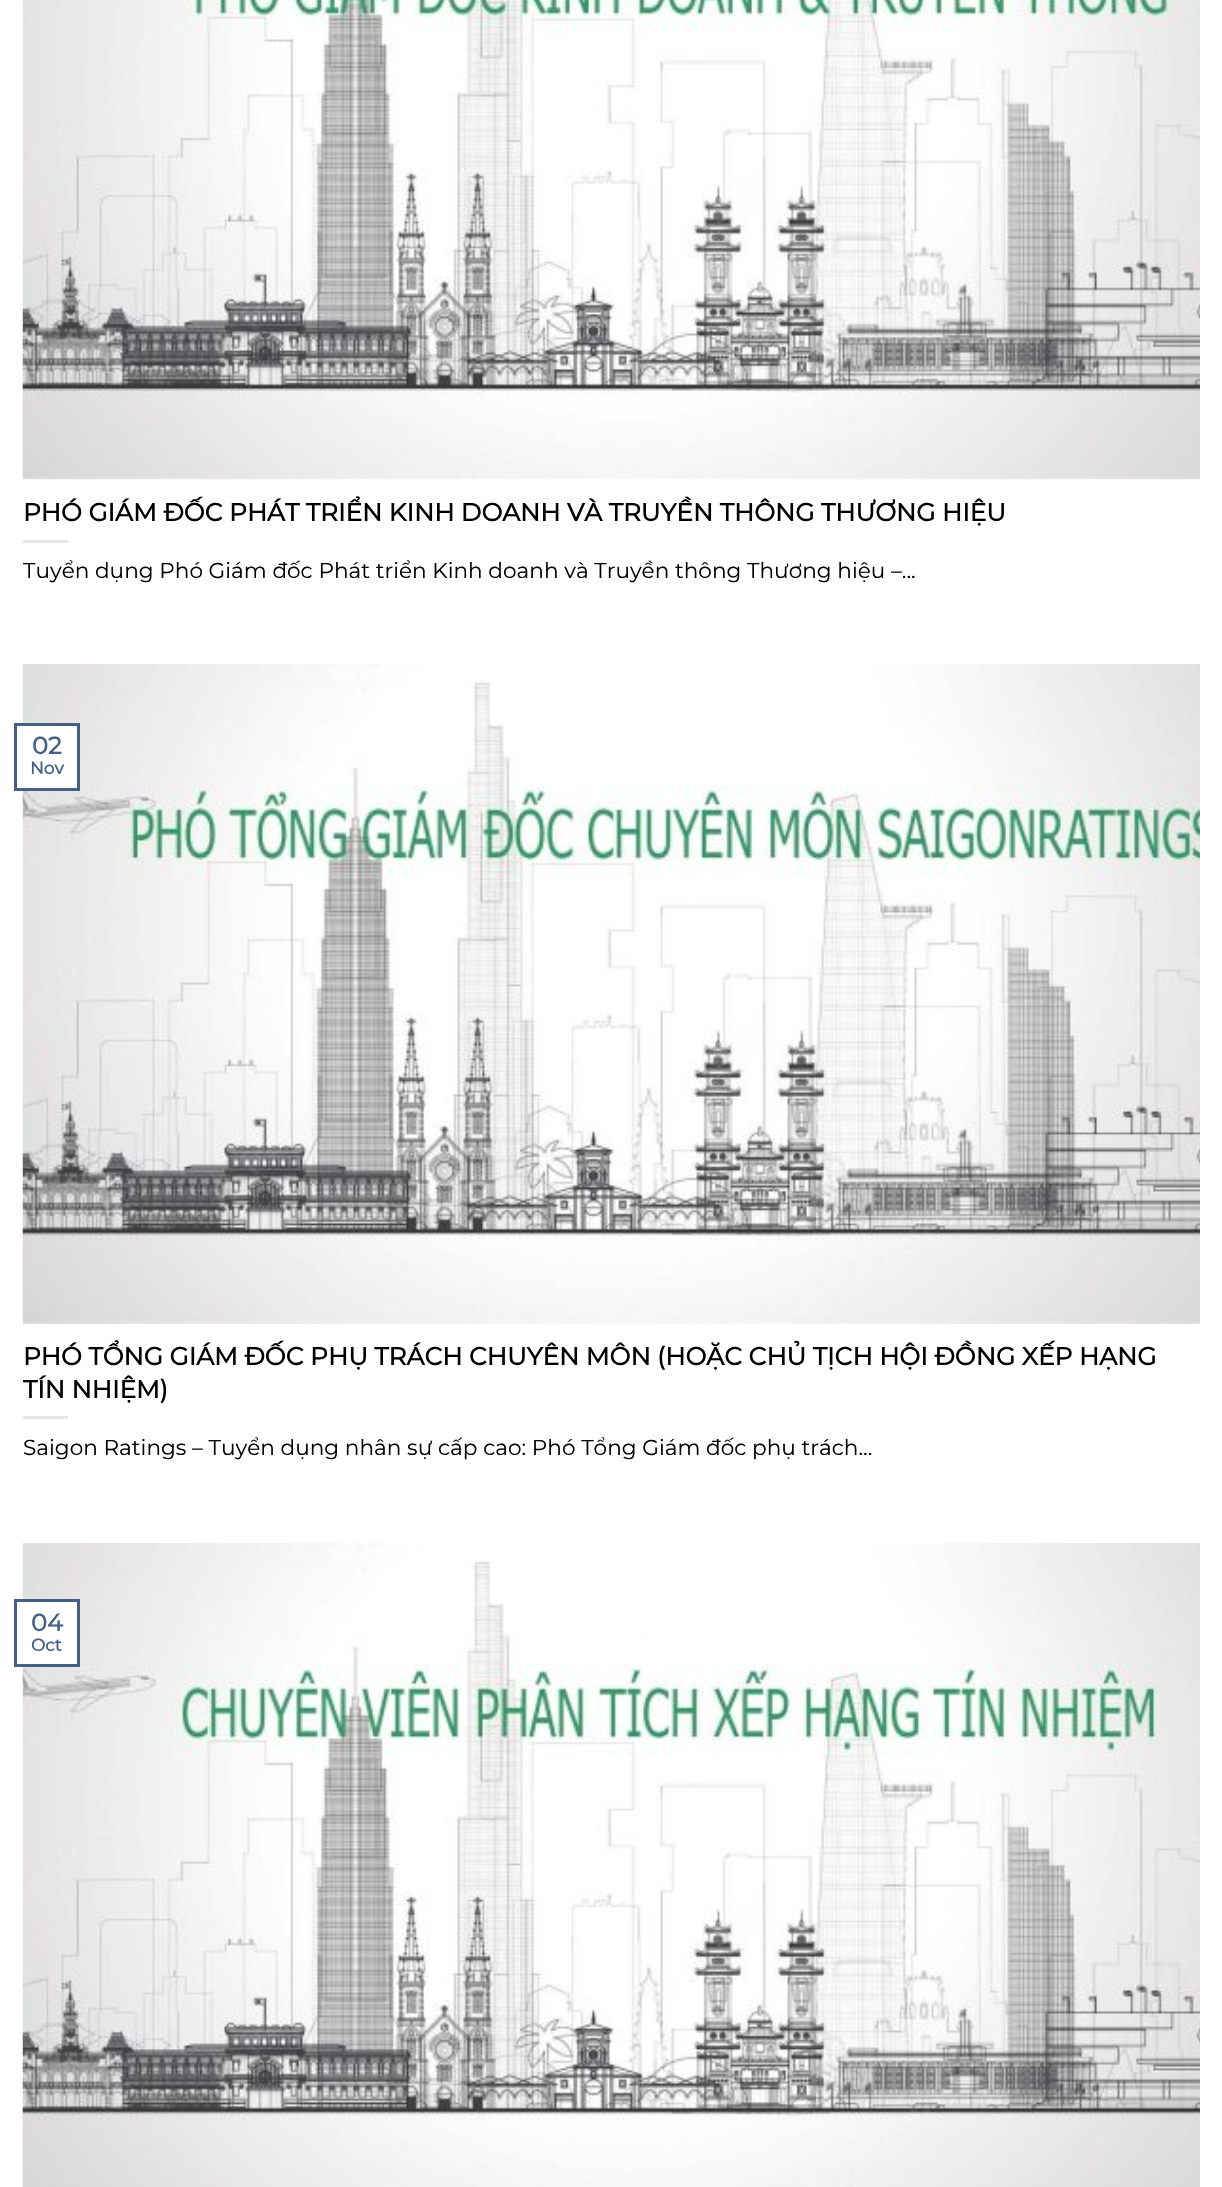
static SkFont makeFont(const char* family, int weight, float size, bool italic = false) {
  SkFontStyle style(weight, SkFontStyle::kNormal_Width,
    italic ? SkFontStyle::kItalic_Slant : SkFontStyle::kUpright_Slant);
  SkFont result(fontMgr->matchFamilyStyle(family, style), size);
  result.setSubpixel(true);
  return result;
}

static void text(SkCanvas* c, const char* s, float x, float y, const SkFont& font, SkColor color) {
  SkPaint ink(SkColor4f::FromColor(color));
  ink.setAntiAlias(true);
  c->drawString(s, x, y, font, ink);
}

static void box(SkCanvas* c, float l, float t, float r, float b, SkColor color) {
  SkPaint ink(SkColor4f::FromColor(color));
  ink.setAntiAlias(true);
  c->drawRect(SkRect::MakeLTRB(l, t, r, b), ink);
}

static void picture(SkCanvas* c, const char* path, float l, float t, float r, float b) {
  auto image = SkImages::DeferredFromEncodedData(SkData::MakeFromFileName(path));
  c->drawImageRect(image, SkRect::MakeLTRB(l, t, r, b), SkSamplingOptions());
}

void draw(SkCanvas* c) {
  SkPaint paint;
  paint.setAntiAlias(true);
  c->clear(0xffffffff);
  picture(c, "img_01.png", 22, 0, 1200, 480);
  SkFont face1 = makeFont("Montserrat", 700, 24.85f);
  text(c, "PHÓ GIÁM ĐỐC PHÁT TRIỂN KINH DOANH VÀ TRUYỀN THÔNG THƯƠNG HIỆU", 23, 521, face1, 0xff000000);
  box(c, 23, 540, 68, 543, 0xffe6e6e6);
  SkFont face2 = makeFont("Montserrat", 400, 21.6f);
  text(c, "Tuyển dụng Phó Giám đốc Phát triển Kinh doanh và Truyền thông Thương hiệu –...", 23, 578, face2, 0xff000000);
  picture(c, "img_02.png", 22, 664, 1200, 1324);
  box(c, 22, 726, 77, 788, 0xffffffff);
  paint.setStyle(SkPaint::kStroke_Style);
  paint.setStrokeWidth(3);
  paint.setColor(0xff446084);
  c->drawRect(SkRect::MakeLTRB(15.5f, 724.5f, 78.5f, 789.5f), paint);
  SkFont face3 = makeFont("Montserrat", 700, 24);
  text(c, "02", 32, 754, face3, 0xff446084);
  SkFont face4 = makeFont("Montserrat", 700, 17);
  text(c, "Nov", 30, 774, face4, 0xff446084);
  text(c, "PHÓ TỔNG GIÁM ĐỐC PHỤ TRÁCH CHUYÊN MÔN (HOẶC CHỦ TỊCH HỘI ĐỒNG XẾP HẠNG", 23, 1365, face1, 0xff000000);
  text(c, "TÍN NHIỆM)", 23, 1398, face1, 0xff000000);
  box(c, 23, 1416, 68, 1419, 0xffe6e6e6);
  text(c, "Saigon Ratings – Tuyển dụng nhân sự cấp cao: Phó Tổng Giám đốc phụ trách...", 23, 1455, face2, 0xff000000);
  picture(c, "img_03.png", 22, 1543, 1200, 2187);
  box(c, 22, 1602, 77, 1664, 0xffffffff);
  c->drawRect(SkRect::MakeLTRB(15.5f, 1600.5f, 78.5f, 1665.5f), paint);
  text(c, "04", 31, 1631, face3, 0xff446084);
  text(c, "Oct", 31, 1651, face4, 0xff446084);
}
